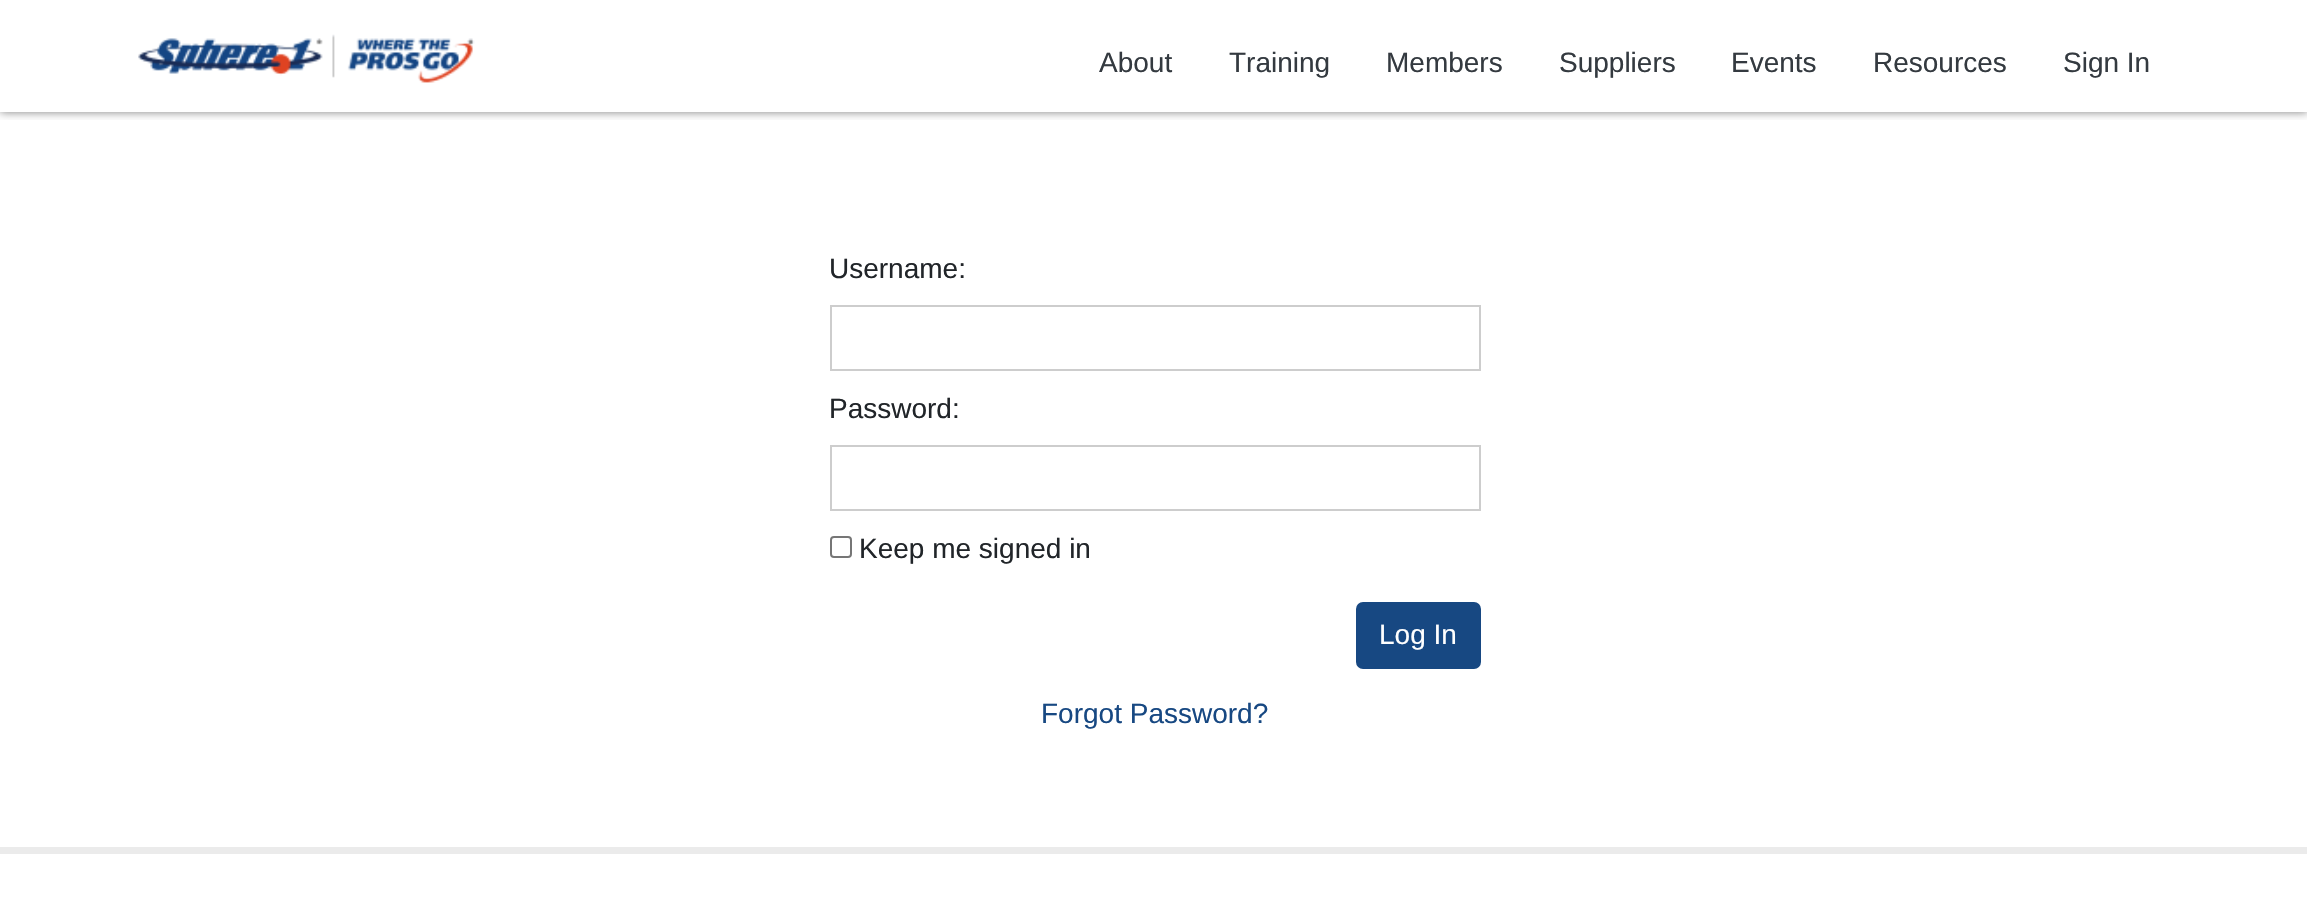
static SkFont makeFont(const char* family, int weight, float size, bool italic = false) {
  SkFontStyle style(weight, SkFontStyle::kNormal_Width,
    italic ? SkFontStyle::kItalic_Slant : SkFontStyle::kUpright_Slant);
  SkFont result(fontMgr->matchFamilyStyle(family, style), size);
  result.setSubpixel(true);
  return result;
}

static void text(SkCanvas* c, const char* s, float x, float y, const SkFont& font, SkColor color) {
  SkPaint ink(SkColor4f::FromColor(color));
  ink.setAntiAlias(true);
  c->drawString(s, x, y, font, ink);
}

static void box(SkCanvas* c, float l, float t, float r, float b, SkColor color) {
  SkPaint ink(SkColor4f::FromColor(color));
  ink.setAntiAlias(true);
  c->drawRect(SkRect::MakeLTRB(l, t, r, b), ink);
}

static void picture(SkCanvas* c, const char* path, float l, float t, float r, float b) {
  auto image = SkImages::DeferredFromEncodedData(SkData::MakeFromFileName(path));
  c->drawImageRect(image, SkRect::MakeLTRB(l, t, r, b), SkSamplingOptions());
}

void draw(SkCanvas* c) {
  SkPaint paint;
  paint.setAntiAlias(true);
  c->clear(0xffffffff);
  c->save();
  c->clipRect(SkRect::MakeLTRB(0, 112, 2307, 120));
  paint.setColor(0x80000000);
  paint.setMaskFilter(SkMaskFilter::MakeBlur(kNormal_SkBlurStyle, 4.5f));
  c->drawRect(SkRect::MakeLTRB(0, 0, 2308, 112), paint);
  paint.setMaskFilter(nullptr);
  c->restore();
  picture(c, "img_01.png", 138, 34, 475, 83);
  SkFont face1 = makeFont("Liberation Sans", 400, 28);
  text(c, "About", 1099, 72, face1, 0xff343a40);
  text(c, "Training", 1229, 72, face1, 0xff343a40);
  text(c, "Members", 1386, 72, face1, 0xff343a40);
  text(c, "Suppliers", 1559, 72, face1, 0xff343a40);
  text(c, "Events", 1731, 72, face1, 0xff343a40);
  text(c, "Resources", 1873, 72, face1, 0xff343a40);
  text(c, "Sign In", 2063, 72, face1, 0xff343a40);
  text(c, "Username:", 829, 278, face1, 0xff212529);
  paint.setStyle(SkPaint::kStroke_Style);
  paint.setStrokeWidth(2);
  paint.setColor(0xffcdcdcd);
  c->drawRect(SkRect::MakeLTRB(831, 306, 1480, 370), paint);
  text(c, "Password:", 829, 418, face1, 0xff212529);
  c->drawRect(SkRect::MakeLTRB(831, 446, 1480, 510), paint);
  paint.setColor(0xff767676);
  c->drawRoundRect(SkRect::MakeLTRB(831, 537, 851, 557), 3, 3, paint);
  text(c, "Keep me signed in", 859, 558, face1, 0xff212529);
  paint.setStyle(SkPaint::kFill_Style);
  paint.setColor(0xff174882);
  c->drawRoundRect(SkRect::MakeLTRB(1357, 603, 1480, 668), 6, 6, paint);
  paint.setStyle(SkPaint::kStroke_Style);
  c->drawRoundRect(SkRect::MakeLTRB(1357, 603, 1480, 668), 6, 6, paint);
  text(c, "Log In", 1379, 644, face1, 0xffffffff);
  text(c, "Forgot Password?", 1041, 723, face1, 0xff174882);
  box(c, 0, 847, 2307, 854, 0xffebebeb);
}
